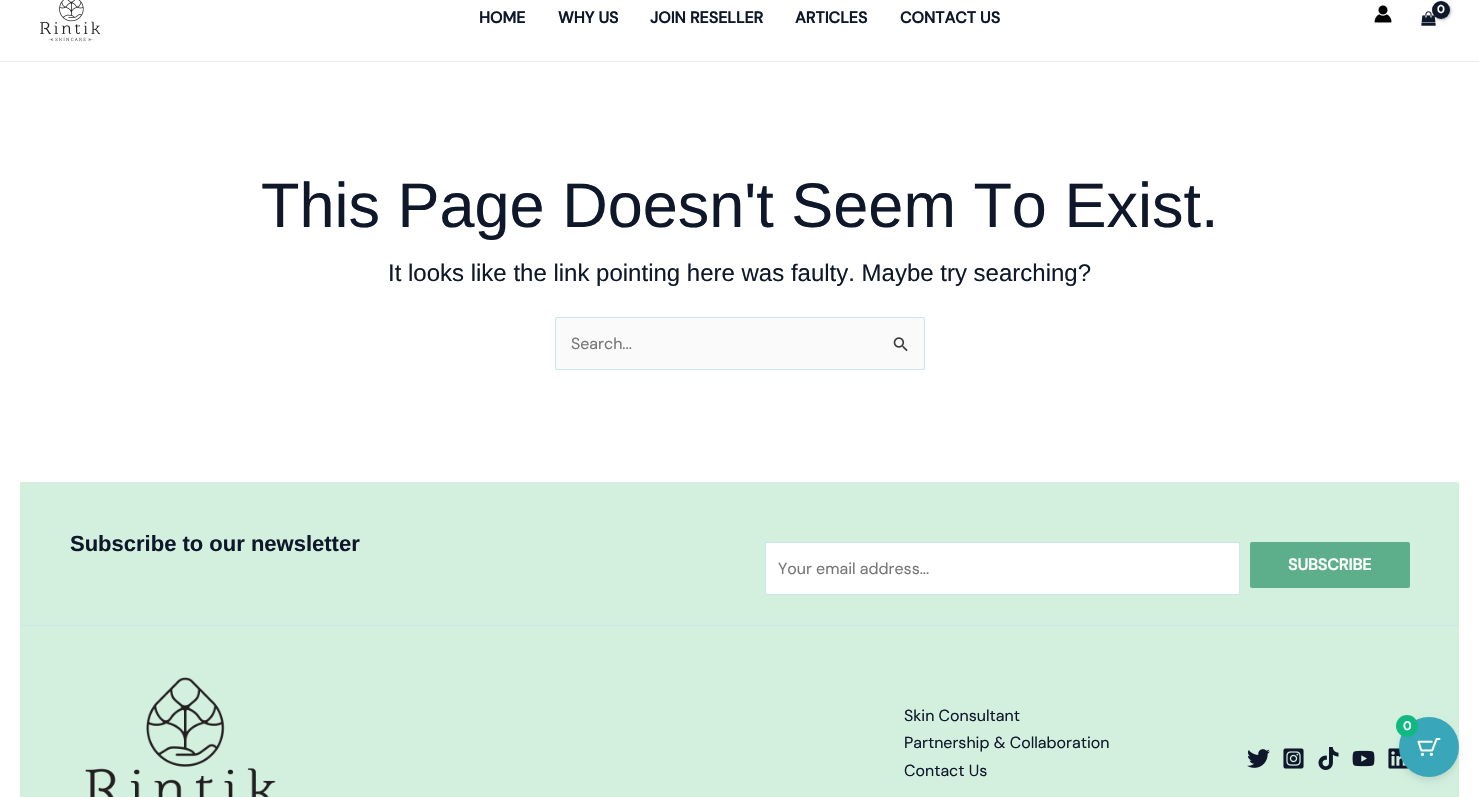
static SkFont makeFont(const char* family, int weight, float size, bool italic = false) {
  SkFontStyle style(weight, SkFontStyle::kNormal_Width,
    italic ? SkFontStyle::kItalic_Slant : SkFontStyle::kUpright_Slant);
  SkFont result(fontMgr->matchFamilyStyle(family, style), size);
  result.setSubpixel(true);
  return result;
}

static void text(SkCanvas* c, const char* s, float x, float y, const SkFont& font, SkColor color) {
  SkPaint ink(SkColor4f::FromColor(color));
  ink.setAntiAlias(true);
  c->drawString(s, x, y, font, ink);
}

static void box(SkCanvas* c, float l, float t, float r, float b, SkColor color) {
  SkPaint ink(SkColor4f::FromColor(color));
  ink.setAntiAlias(true);
  c->drawRect(SkRect::MakeLTRB(l, t, r, b), ink);
}

static void roundBox(SkCanvas* c, float l, float t, float r, float b, float radius, SkColor color) {
  SkPaint ink(SkColor4f::FromColor(color));
  ink.setAntiAlias(true);
  c->drawRoundRect(SkRect::MakeLTRB(l, t, r, b), radius, radius, ink);
}

static void picture(SkCanvas* c, const char* path, float l, float t, float r, float b) {
  auto image = SkImages::DeferredFromEncodedData(SkData::MakeFromFileName(path));
  c->drawImageRect(image, SkRect::MakeLTRB(l, t, r, b), SkSamplingOptions());
}

void draw(SkCanvas* c) {
  SkPaint paint;
  paint.setAntiAlias(true);
  c->clear(0xffffffff);
  box(c, 0, 61, 1479, 62, 0xffeaeaea);
  picture(c, "img_01.png", 40, 0, 101, 42);
  picture(c, "img_02.png", 1374, 5, 1392, 23);
  picture(c, "img_03.png", 1421, 11, 1436, 26);
  paint.setColor(0x4d000000);
  paint.setMaskFilter(SkMaskFilter::MakeBlur(kNormal_SkBlurStyle, 1.5f));
  c->drawRoundRect(SkRect::MakeLTRB(1433, 2, 1451, 20), 9, 9, paint);
  paint.setMaskFilter(nullptr);
  paint.setColor(0xff0f172a);
  c->drawCircle(1441, 10, 9, paint);
  SkFont face1 = makeFont("DM Sans", 700, 11);
  text(c, "0", 1437, 13, face1, 0xffffffff);
  SkFont face2 = makeFont("DM Sans", 700, 16);
  text(c, "HOME", 479, 23, face2, 0xff0f172a);
  text(c, "WHY US", 558, 23, face2, 0xff0f172a);
  text(c, "JOIN RESELLER", 650, 23, face2, 0xff0f172a);
  text(c, "ARTICLES", 795, 23, face2, 0xff0f172a);
  text(c, "CONTACT US", 900, 23, face2, 0xff0f172a);
  SkFont face3 = makeFont("Liberation Sans", 400, 63);
  text(c, "This Page Doesn't Seem To Exist.", 261, 227, face3, 0xff0f172a);
  SkFont face4 = makeFont("Liberation Sans", 400, 24);
  text(c, "It looks like the link pointing here was faulty. Maybe try searching?", 388, 281, face4, 0xff0f172a);
  paint.setColor(0xfffafafa);
  c->drawRoundRect(SkRect::MakeLTRB(555.5f, 317.5f, 924.5f, 369.5f), 1.5f, 1.5f, paint);
  paint.setStyle(SkPaint::kStroke_Style);
  paint.setStrokeWidth(1);
  paint.setColor(0xffcae6e8);
  c->drawRoundRect(SkRect::MakeLTRB(555.5f, 317.5f, 924.5f, 369.5f), 1.5f, 1.5f, paint);
  SkFont face5 = makeFont("DM Sans", 400, 16);
  text(c, "Search...", 571, 349, face5, 0xff757575);
  picture(c, "img_04.png", 893, 337, 908, 352);
  box(c, 20, 482, 1459, 625, 0xffd3f0df);
  SkFont face6 = makeFont("Liberation Sans", 700, 22);
  text(c, "Subscribe to our newsletter", 70, 551, face6, 0xff0f172a);
  paint.setStyle(SkPaint::kFill_Style);
  paint.setColor(0xffffffff);
  c->drawRect(SkRect::MakeLTRB(765.5f, 542.5f, 1239.5f, 594.5f), paint);
  paint.setStyle(SkPaint::kStroke_Style);
  paint.setColor(0xffcae6e8);
  c->drawRect(SkRect::MakeLTRB(765.5f, 542.5f, 1239.5f, 594.5f), paint);
  text(c, "Your email address...", 778, 574, face5, 0xff757575);
  roundBox(c, 1250, 542, 1410, 588, 2, 0xff5dae8b);
  text(c, "SUBSCRIBE", 1288, 570, face2, 0xffffffff);
  box(c, 20, 626, 1459, 797, 0xffd3f0df);
  box(c, 20, 625, 1459, 626, 0xffcae6e8);
  picture(c, "img_05.png", 85, 677, 276, 797);
  text(c, "Skin Consultant", 904, 721, face5, 0xff0f172a);
  text(c, "Partnership & Collaboration", 904, 748, face5, 0xff0f172a);
  text(c, "Contact Us", 904, 776, face5, 0xff0f172a);
  picture(c, "img_06.png", 1247, 749, 1270, 768);
  picture(c, "img_07.png", 1283, 748, 1304, 769);
  picture(c, "img_08.png", 1318, 747, 1339, 770);
  picture(c, "img_09.png", 1352, 750, 1375, 767);
  picture(c, "img_10.png", 1388, 748, 1409, 769);
  paint.setStyle(SkPaint::kFill_Style);
  paint.setColor(0x1a000000);
  paint.setMaskFilter(SkMaskFilter::MakeBlur(kNormal_SkBlurStyle, 3.5f));
  c->drawRoundRect(SkRect::MakeLTRB(1399, 721, 1459, 781), 30, 30, paint);
  paint.setMaskFilter(nullptr);
  paint.setColor(0xff3aa6b9);
  c->drawCircle(1429, 747, 30, paint);
  paint.setColor(0xff10b981);
  c->drawCircle(1407, 726, 11, paint);
  SkFont face7 = makeFont("DM Sans", 700, 12);
  text(c, "0", 1403, 730, face7, 0xffffffff);
  picture(c, "img_11.png", 1417, 738, 1441, 756);
}
